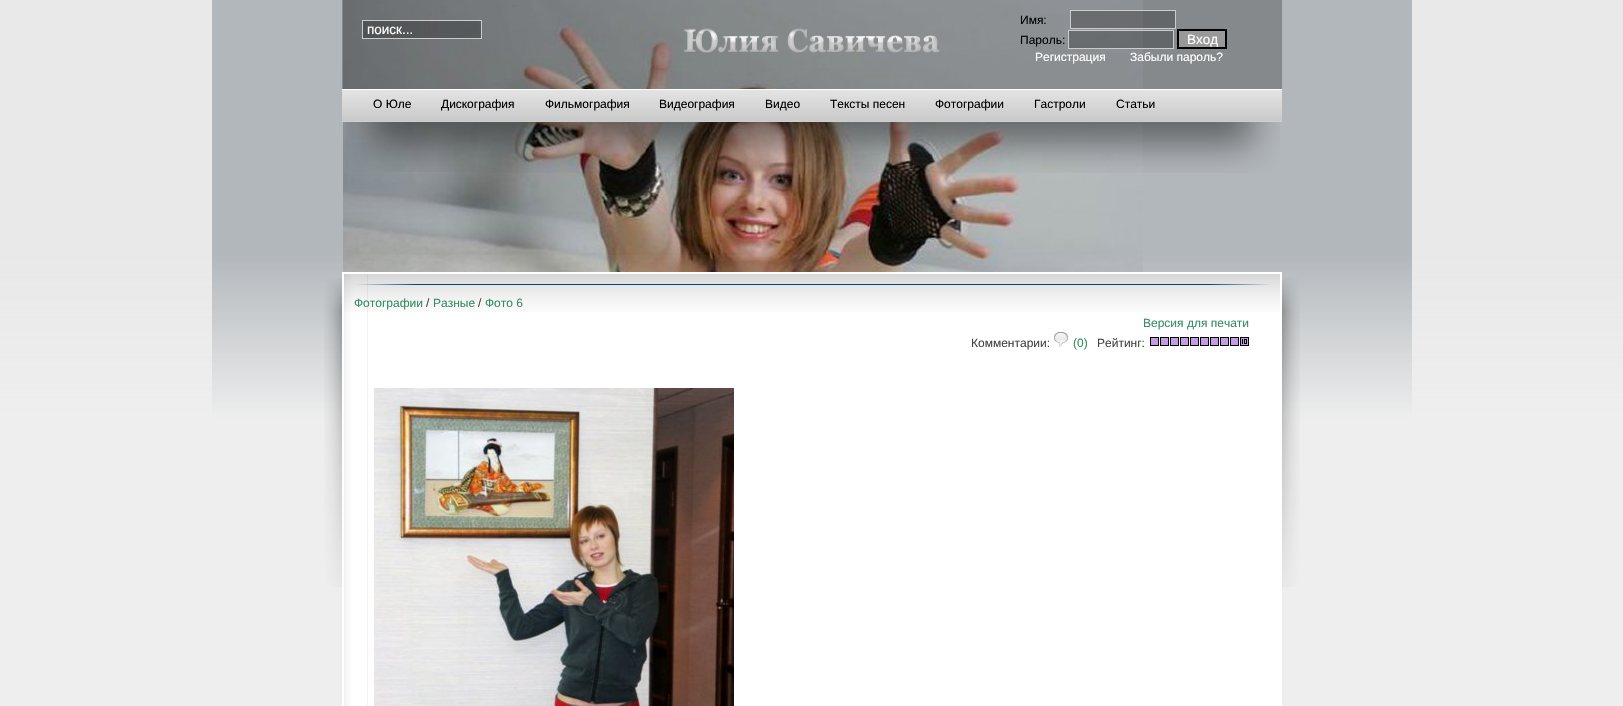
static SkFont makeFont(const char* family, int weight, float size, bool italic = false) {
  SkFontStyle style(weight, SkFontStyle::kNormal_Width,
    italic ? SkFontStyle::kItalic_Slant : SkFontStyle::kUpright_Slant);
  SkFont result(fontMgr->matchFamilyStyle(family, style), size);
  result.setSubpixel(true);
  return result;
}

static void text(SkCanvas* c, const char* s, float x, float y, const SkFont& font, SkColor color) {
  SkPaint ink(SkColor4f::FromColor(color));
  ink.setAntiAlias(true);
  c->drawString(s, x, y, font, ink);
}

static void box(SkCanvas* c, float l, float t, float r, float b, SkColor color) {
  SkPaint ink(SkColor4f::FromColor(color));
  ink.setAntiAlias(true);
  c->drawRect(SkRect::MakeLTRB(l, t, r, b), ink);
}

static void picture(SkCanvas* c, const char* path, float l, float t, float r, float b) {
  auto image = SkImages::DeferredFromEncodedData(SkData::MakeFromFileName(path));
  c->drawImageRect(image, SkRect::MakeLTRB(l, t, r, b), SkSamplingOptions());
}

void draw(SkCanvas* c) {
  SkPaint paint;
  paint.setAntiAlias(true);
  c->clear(0xffeeeeee);
  box(c, 0, 0, 1623, 420, 0xffe9e9e9);
  picture(c, "img_01.png", 212, 0, 1412, 420);
  picture(c, "img_02.png", 0, 255, 1623, 450);
  box(c, 342, 0, 1282, 83, 0x40000000);
  picture(c, "img_03.png", 684, 28, 940, 53);
  paint.setColor(0x40000000);
  c->drawRect(SkRect::MakeLTRB(362.5f, 20.5f, 481.5f, 38.5f), paint);
  paint.setStyle(SkPaint::kStroke_Style);
  paint.setStrokeWidth(1);
  paint.setColor(0xffcccccc);
  c->drawRect(SkRect::MakeLTRB(362.5f, 20.5f, 481.5f, 38.5f), paint);
  SkFont face1 = makeFont("Liberation Sans", 400, 13.5f);
  text(c, "поиск...", 367, 34, face1, 0xffffffff);
  SkFont face2 = makeFont("Liberation Sans", 400, 12);
  text(c, "Имя:", 1020, 24, face2, 0xff000000);
  paint.setStyle(SkPaint::kFill_Style);
  paint.setColor(0x40000000);
  c->drawRect(SkRect::MakeLTRB(1070.5f, 10.5f, 1175.5f, 28.5f), paint);
  paint.setStyle(SkPaint::kStroke_Style);
  paint.setColor(0xffcccccc);
  c->drawRect(SkRect::MakeLTRB(1070.5f, 10.5f, 1175.5f, 28.5f), paint);
  text(c, "Пароль:", 1020, 44, face2, 0xff000000);
  paint.setStyle(SkPaint::kFill_Style);
  paint.setColor(0x40000000);
  c->drawRect(SkRect::MakeLTRB(1068.5f, 30.5f, 1173.5f, 48.5f), paint);
  paint.setStyle(SkPaint::kStroke_Style);
  paint.setColor(0xffcccccc);
  c->drawRect(SkRect::MakeLTRB(1068.5f, 30.5f, 1173.5f, 48.5f), paint);
  paint.setStyle(SkPaint::kFill_Style);
  paint.setColor(0xff999999);
  c->drawRect(SkRect::MakeLTRB(1178, 30, 1226, 48), paint);
  paint.setStyle(SkPaint::kStroke_Style);
  paint.setStrokeWidth(2);
  paint.setColor(0xff000000);
  c->drawRect(SkRect::MakeLTRB(1178, 30, 1226, 48), paint);
  text(c, "Вход", 1187, 44, face1, 0xffffffff);
  text(c, "Регистрация", 1035, 61, face2, 0xffffffff);
  text(c, "Забыли пароль?", 1130, 61, face2, 0xffffffff);
  picture(c, "img_04.png", 342, 83, 1282, 122);
  text(c, "О Юле", 373, 108, face2, 0xff000000);
  text(c, "Дискография", 441, 108, face2, 0xff000000);
  text(c, "Фильмография", 545, 108, face2, 0xff000000);
  text(c, "Видеография", 659, 108, face2, 0xff000000);
  text(c, "Видео", 765, 108, face2, 0xff000000);
  text(c, "Тексты песен", 830, 108, face2, 0xff000000);
  text(c, "Фотографии", 935, 108, face2, 0xff000000);
  text(c, "Гастроли", 1034, 108, face2, 0xff000000);
  text(c, "Статьи", 1116, 108, face2, 0xff000000);
  picture(c, "img_05.png", 346, 122, 476, 172);
  picture(c, "img_06.png", 476, 122, 1148, 173);
  picture(c, "img_07.png", 1148, 122, 1280, 173);
  picture(c, "img_08.png", 324, 278, 342, 587);
  picture(c, "img_09.png", 1282, 277, 1300, 587);
  box(c, 342, 272, 1282, 706, 0xffffffff);
  picture(c, "img_10.png", 344, 274, 1280, 312);
  picture(c, "img_11.png", 344, 274, 368, 706);
  box(c, 354, 284, 1270, 285, 0xff004c89);
  picture(c, "img_12.png", 354, 284, 414, 285);
  picture(c, "img_13.png", 1211, 284, 1270, 285);
  text(c, "Фотографии", 354, 307, face2, 0xff348d63);
  text(c, "/", 426, 307, face2, 0xff444444);
  text(c, "Разные", 433, 307, face2, 0xff348d63);
  text(c, "/", 478, 307, face2, 0xff444444);
  text(c, "Фото 6", 485, 307, face2, 0xff348d63);
  text(c, "Версия для печати", 1143, 327, face2, 0xff348d63);
  text(c, "Комментарии:", 971, 347, face2, 0xff444444);
  picture(c, "img_14.png", 1054, 332, 1068, 347);
  text(c, "(0)", 1073, 347, face2, 0xff348d63);
  text(c, "Рейтинг:", 1097, 347, face2, 0xff444444);
  picture(c, "img_15.png", 1150, 337, 1249, 346);
  picture(c, "img_16.png", 374, 388, 734, 706);
}
